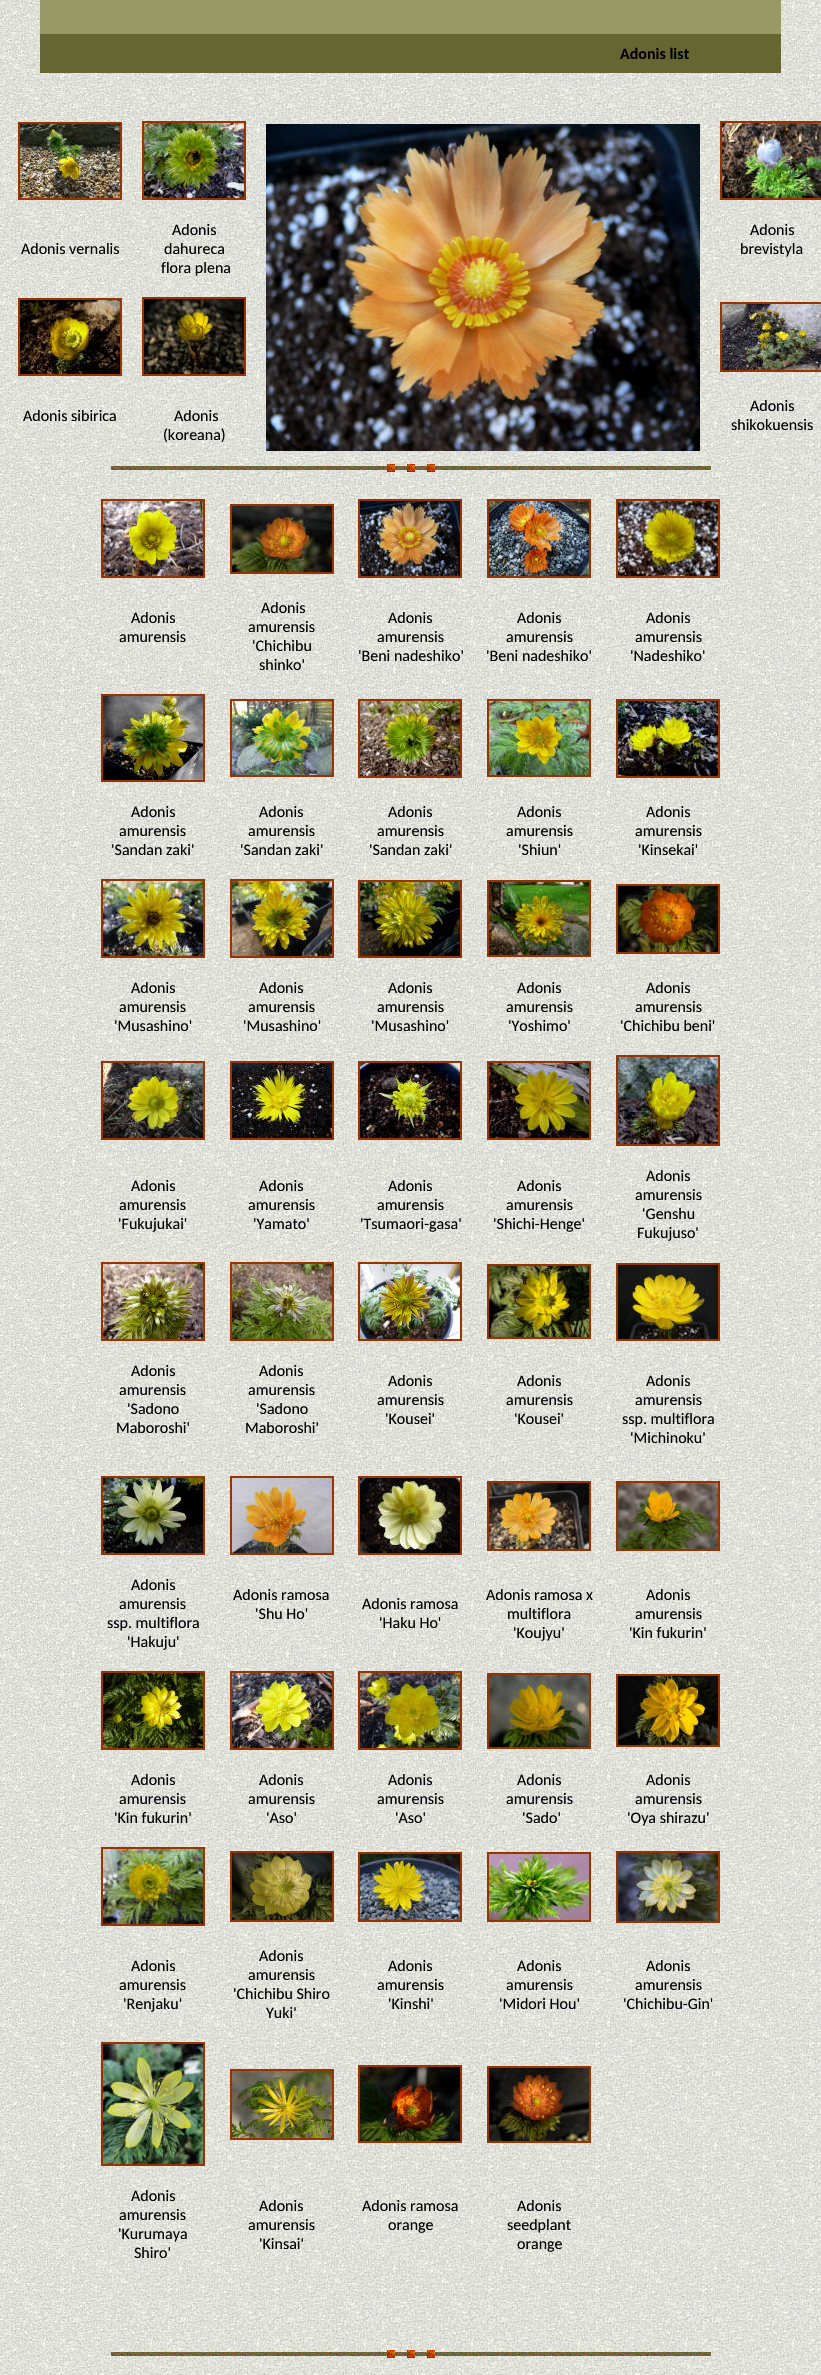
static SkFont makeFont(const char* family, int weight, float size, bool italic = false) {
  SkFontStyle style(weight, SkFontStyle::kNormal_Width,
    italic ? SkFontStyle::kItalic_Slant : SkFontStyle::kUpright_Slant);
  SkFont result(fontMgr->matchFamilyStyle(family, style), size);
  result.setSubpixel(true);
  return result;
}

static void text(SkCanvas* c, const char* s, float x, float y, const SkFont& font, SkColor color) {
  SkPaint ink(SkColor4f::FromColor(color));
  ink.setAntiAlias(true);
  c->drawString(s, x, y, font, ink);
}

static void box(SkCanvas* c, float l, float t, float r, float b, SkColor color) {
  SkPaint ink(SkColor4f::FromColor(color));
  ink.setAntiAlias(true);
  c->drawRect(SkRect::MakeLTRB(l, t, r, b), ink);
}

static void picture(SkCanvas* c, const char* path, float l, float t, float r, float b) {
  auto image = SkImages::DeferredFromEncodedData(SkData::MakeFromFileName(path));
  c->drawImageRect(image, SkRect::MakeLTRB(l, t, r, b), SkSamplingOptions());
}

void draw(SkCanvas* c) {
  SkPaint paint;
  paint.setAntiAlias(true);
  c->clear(0xffffffff);
  picture(c, "img_01.png", 0, 0, 821, 2375);
  box(c, 40, 0, 781, 34, 0xff999966);
  box(c, 40, 34, 781, 73, 0xff666633);
  SkFont face1 = makeFont("Carlito", 700, 16);
  text(c, "Adonis list", 620, 59, face1, 0xff000000);
  paint.setStyle(SkPaint::kStroke_Style);
  paint.setStrokeWidth(2);
  paint.setColor(0xff993300);
  c->drawRect(SkRect::MakeLTRB(19, 123, 121, 199), paint);
  picture(c, "img_02.png", 20, 124, 120, 198);
  c->drawRect(SkRect::MakeLTRB(143, 122, 245, 199), paint);
  picture(c, "img_03.png", 144, 123, 244, 198);
  picture(c, "img_04.png", 266, 124, 700, 451);
  c->drawRect(SkRect::MakeLTRB(721, 122, 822, 199), paint);
  picture(c, "img_05.png", 722, 123, 821, 198);
  SkFont face2 = makeFont("Carlito", 400, 16);
  text(c, "Adonis vernalis", 21, 254, face2, 0xff000000);
  text(c, "Adonis", 172, 235, face2, 0xff000000);
  text(c, "dahureca", 164, 254, face2, 0xff000000);
  text(c, "flora plena", 161, 273, face2, 0xff000000);
  text(c, "Adonis", 750, 235, face2, 0xff000000);
  text(c, "brevistyla", 740, 254, face2, 0xff000000);
  c->drawRect(SkRect::MakeLTRB(19, 299, 121, 375), paint);
  picture(c, "img_06.png", 20, 300, 120, 374);
  c->drawRect(SkRect::MakeLTRB(143, 298, 245, 375), paint);
  picture(c, "img_07.png", 144, 299, 244, 374);
  c->drawRect(SkRect::MakeLTRB(721, 303, 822, 371), paint);
  picture(c, "img_08.png", 722, 304, 821, 370);
  text(c, "Adonis sibirica", 23, 421, face2, 0xff000000);
  text(c, "Adonis", 174, 421, face2, 0xff000000);
  text(c, "(koreana)", 163, 440, face2, 0xff000000);
  text(c, "Adonis", 750, 411, face2, 0xff000000);
  text(c, "shikokuensis", 731, 430, face2, 0xff000000);
  picture(c, "img_09.png", 111, 464, 711, 472);
  c->drawRect(SkRect::MakeLTRB(102, 500, 204, 577), paint);
  picture(c, "img_10.png", 103, 501, 203, 576);
  c->drawRect(SkRect::MakeLTRB(231, 505, 333, 573), paint);
  picture(c, "img_11.png", 232, 506, 332, 572);
  c->drawRect(SkRect::MakeLTRB(359, 500, 461, 577), paint);
  picture(c, "img_12.png", 360, 501, 460, 576);
  c->drawRect(SkRect::MakeLTRB(488, 500, 590, 577), paint);
  picture(c, "img_13.png", 489, 501, 589, 576);
  c->drawRect(SkRect::MakeLTRB(617, 500, 719, 577), paint);
  picture(c, "img_14.png", 618, 501, 718, 576);
  text(c, "Adonis", 131, 623, face2, 0xff000000);
  text(c, "amurensis", 119, 642, face2, 0xff000000);
  text(c, "Adonis", 261, 613, face2, 0xff000000);
  text(c, "amurensis", 248, 632, face2, 0xff000000);
  text(c, "'Chichibu", 252, 651, face2, 0xff000000);
  text(c, "shinko'", 259, 670, face2, 0xff000000);
  text(c, "Adonis", 388, 623, face2, 0xff000000);
  text(c, "amurensis", 377, 642, face2, 0xff000000);
  text(c, "'Beni nadeshiko'", 358, 661, face2, 0xff000000);
  text(c, "Adonis", 517, 623, face2, 0xff000000);
  text(c, "amurensis", 506, 642, face2, 0xff000000);
  text(c, "'Beni nadeshiko'", 486, 661, face2, 0xff000000);
  text(c, "Adonis", 646, 623, face2, 0xff000000);
  text(c, "amurensis", 635, 642, face2, 0xff000000);
  text(c, "'Nadeshiko'", 630, 661, face2, 0xff000000);
  c->drawRect(SkRect::MakeLTRB(102, 695, 204, 781), paint);
  picture(c, "img_15.png", 103, 696, 203, 780);
  c->drawRect(SkRect::MakeLTRB(231, 700, 333, 776), paint);
  picture(c, "img_16.png", 232, 701, 332, 775);
  c->drawRect(SkRect::MakeLTRB(359, 700, 461, 777), paint);
  picture(c, "img_17.png", 360, 701, 460, 776);
  c->drawRect(SkRect::MakeLTRB(488, 700, 590, 776), paint);
  picture(c, "img_18.png", 489, 701, 589, 775);
  c->drawRect(SkRect::MakeLTRB(617, 700, 719, 777), paint);
  picture(c, "img_19.png", 618, 701, 718, 776);
  text(c, "Adonis", 131, 817, face2, 0xff000000);
  text(c, "amurensis", 119, 836, face2, 0xff000000);
  text(c, "'Sandan zaki'", 111, 855, face2, 0xff000000);
  text(c, "Adonis", 259, 817, face2, 0xff000000);
  text(c, "amurensis", 248, 836, face2, 0xff000000);
  text(c, "'Sandan zaki'", 240, 855, face2, 0xff000000);
  text(c, "Adonis", 388, 817, face2, 0xff000000);
  text(c, "amurensis", 377, 836, face2, 0xff000000);
  text(c, "'Sandan zaki'", 369, 855, face2, 0xff000000);
  text(c, "Adonis", 517, 817, face2, 0xff000000);
  text(c, "amurensis", 506, 836, face2, 0xff000000);
  text(c, "'Shiun'", 518, 855, face2, 0xff000000);
  text(c, "Adonis", 646, 817, face2, 0xff000000);
  text(c, "amurensis", 635, 836, face2, 0xff000000);
  text(c, "'Kinsekai'", 638, 855, face2, 0xff000000);
  c->drawRect(SkRect::MakeLTRB(102, 880, 204, 957), paint);
  picture(c, "img_20.png", 103, 881, 203, 956);
  c->drawRect(SkRect::MakeLTRB(231, 880, 333, 957), paint);
  picture(c, "img_21.png", 232, 881, 332, 956);
  c->drawRect(SkRect::MakeLTRB(359, 881, 461, 957), paint);
  picture(c, "img_22.png", 360, 882, 460, 956);
  c->drawRect(SkRect::MakeLTRB(488, 881, 590, 956), paint);
  picture(c, "img_23.png", 489, 882, 589, 955);
  c->drawRect(SkRect::MakeLTRB(617, 885, 719, 953), paint);
  picture(c, "img_24.png", 618, 886, 718, 952);
  text(c, "Adonis", 131, 993, face2, 0xff000000);
  text(c, "amurensis", 119, 1012, face2, 0xff000000);
  text(c, "'Musashino'", 114, 1031, face2, 0xff000000);
  text(c, "Adonis", 259, 993, face2, 0xff000000);
  text(c, "amurensis", 248, 1012, face2, 0xff000000);
  text(c, "'Musashino'", 243, 1031, face2, 0xff000000);
  text(c, "Adonis", 388, 993, face2, 0xff000000);
  text(c, "amurensis", 377, 1012, face2, 0xff000000);
  text(c, "'Musashino'", 371, 1031, face2, 0xff000000);
  text(c, "Adonis", 517, 993, face2, 0xff000000);
  text(c, "amurensis", 506, 1012, face2, 0xff000000);
  text(c, "'Yoshimo'", 508, 1031, face2, 0xff000000);
  text(c, "Adonis", 646, 993, face2, 0xff000000);
  text(c, "amurensis", 635, 1012, face2, 0xff000000);
  text(c, "'Chichibu beni'", 620, 1031, face2, 0xff000000);
  c->drawRect(SkRect::MakeLTRB(102, 1062, 204, 1139), paint);
  picture(c, "img_25.png", 103, 1063, 203, 1138);
  c->drawRect(SkRect::MakeLTRB(231, 1062, 333, 1139), paint);
  picture(c, "img_26.png", 232, 1063, 332, 1138);
  c->drawRect(SkRect::MakeLTRB(359, 1062, 461, 1139), paint);
  picture(c, "img_27.png", 360, 1063, 460, 1138);
  c->drawRect(SkRect::MakeLTRB(488, 1062, 590, 1139), paint);
  picture(c, "img_28.png", 489, 1063, 589, 1138);
  c->drawRect(SkRect::MakeLTRB(617, 1056, 719, 1145), paint);
  picture(c, "img_29.png", 618, 1057, 718, 1144);
  text(c, "Adonis", 131, 1191, face2, 0xff000000);
  text(c, "amurensis", 119, 1210, face2, 0xff000000);
  text(c, "'Fukujukai'", 118, 1229, face2, 0xff000000);
  text(c, "Adonis", 259, 1191, face2, 0xff000000);
  text(c, "amurensis", 248, 1210, face2, 0xff000000);
  text(c, "'Yamato'", 253, 1229, face2, 0xff000000);
  text(c, "Adonis", 388, 1191, face2, 0xff000000);
  text(c, "amurensis", 377, 1210, face2, 0xff000000);
  text(c, "'Tsumaori-gasa'", 360, 1229, face2, 0xff000000);
  text(c, "Adonis", 517, 1191, face2, 0xff000000);
  text(c, "amurensis", 506, 1210, face2, 0xff000000);
  text(c, "'Shichi-Henge'", 493, 1229, face2, 0xff000000);
  text(c, "Adonis", 646, 1181, face2, 0xff000000);
  text(c, "amurensis", 635, 1200, face2, 0xff000000);
  text(c, "'Genshu", 642, 1219, face2, 0xff000000);
  text(c, "Fukujuso'", 637, 1238, face2, 0xff000000);
  c->drawRect(SkRect::MakeLTRB(102, 1263, 204, 1340), paint);
  picture(c, "img_30.png", 103, 1264, 203, 1339);
  c->drawRect(SkRect::MakeLTRB(231, 1263, 333, 1340), paint);
  picture(c, "img_31.png", 232, 1264, 332, 1339);
  c->drawRect(SkRect::MakeLTRB(359, 1263, 461, 1340), paint);
  picture(c, "img_32.png", 360, 1264, 460, 1339);
  c->drawRect(SkRect::MakeLTRB(488, 1265, 590, 1338), paint);
  picture(c, "img_33.png", 489, 1266, 589, 1337);
  c->drawRect(SkRect::MakeLTRB(617, 1264, 719, 1340), paint);
  picture(c, "img_34.png", 618, 1265, 718, 1339);
  text(c, "Adonis", 131, 1376, face2, 0xff000000);
  text(c, "amurensis", 119, 1395, face2, 0xff000000);
  text(c, "'Sadono", 127, 1414, face2, 0xff000000);
  text(c, "Maboroshi'", 116, 1433, face2, 0xff000000);
  text(c, "Adonis", 259, 1376, face2, 0xff000000);
  text(c, "amurensis", 248, 1395, face2, 0xff000000);
  text(c, "'Sadono", 256, 1414, face2, 0xff000000);
  text(c, "Maboroshi'", 245, 1433, face2, 0xff000000);
  text(c, "Adonis", 388, 1386, face2, 0xff000000);
  text(c, "amurensis", 377, 1405, face2, 0xff000000);
  text(c, "'Kousei'", 385, 1424, face2, 0xff000000);
  text(c, "Adonis", 517, 1386, face2, 0xff000000);
  text(c, "amurensis", 506, 1405, face2, 0xff000000);
  text(c, "'Kousei'", 514, 1424, face2, 0xff000000);
  text(c, "Adonis", 646, 1386, face2, 0xff000000);
  text(c, "amurensis", 635, 1405, face2, 0xff000000);
  text(c, "ssp. multiflora", 622, 1424, face2, 0xff000000);
  text(c, "'Michinoku'", 630, 1443, face2, 0xff000000);
  c->drawRect(SkRect::MakeLTRB(102, 1477, 204, 1554), paint);
  picture(c, "img_35.png", 103, 1478, 203, 1553);
  c->drawRect(SkRect::MakeLTRB(231, 1477, 333, 1554), paint);
  picture(c, "img_36.png", 232, 1478, 332, 1553);
  c->drawRect(SkRect::MakeLTRB(359, 1477, 461, 1554), paint);
  picture(c, "img_37.png", 360, 1478, 460, 1553);
  c->drawRect(SkRect::MakeLTRB(488, 1482, 590, 1550), paint);
  picture(c, "img_38.png", 489, 1483, 589, 1549);
  c->drawRect(SkRect::MakeLTRB(617, 1482, 719, 1550), paint);
  picture(c, "img_39.png", 618, 1483, 718, 1549);
  text(c, "Adonis", 131, 1590, face2, 0xff000000);
  text(c, "amurensis", 119, 1609, face2, 0xff000000);
  text(c, "ssp. multiflora", 107, 1628, face2, 0xff000000);
  text(c, "'Hakuju'", 127, 1647, face2, 0xff000000);
  text(c, "Adonis ramosa", 233, 1600, face2, 0xff000000);
  text(c, "'Shu Ho'", 255, 1619, face2, 0xff000000);
  text(c, "Adonis ramosa", 362, 1609, face2, 0xff000000);
  text(c, "'Haku Ho'", 379, 1628, face2, 0xff000000);
  text(c, "Adonis ramosa x", 486, 1600, face2, 0xff000000);
  text(c, "multiflora", 507, 1619, face2, 0xff000000);
  text(c, "'Koujyu'", 513, 1638, face2, 0xff000000);
  text(c, "Adonis", 646, 1600, face2, 0xff000000);
  text(c, "amurensis", 635, 1619, face2, 0xff000000);
  text(c, "'Kin fukurin'", 629, 1638, face2, 0xff000000);
  c->drawRect(SkRect::MakeLTRB(102, 1672, 204, 1749), paint);
  picture(c, "img_40.png", 103, 1673, 203, 1748);
  c->drawRect(SkRect::MakeLTRB(231, 1672, 333, 1749), paint);
  picture(c, "img_41.png", 232, 1673, 332, 1748);
  c->drawRect(SkRect::MakeLTRB(359, 1672, 461, 1749), paint);
  picture(c, "img_42.png", 360, 1673, 460, 1748);
  c->drawRect(SkRect::MakeLTRB(488, 1674, 590, 1748), paint);
  picture(c, "img_43.png", 489, 1675, 589, 1747);
  c->drawRect(SkRect::MakeLTRB(617, 1675, 719, 1746), paint);
  picture(c, "img_44.png", 618, 1676, 718, 1745);
  text(c, "Adonis", 131, 1785, face2, 0xff000000);
  text(c, "amurensis", 119, 1804, face2, 0xff000000);
  text(c, "'Kin fukurin'", 114, 1823, face2, 0xff000000);
  text(c, "Adonis", 259, 1785, face2, 0xff000000);
  text(c, "amurensis", 248, 1804, face2, 0xff000000);
  text(c, "'Aso'", 266, 1823, face2, 0xff000000);
  text(c, "Adonis", 388, 1785, face2, 0xff000000);
  text(c, "amurensis", 377, 1804, face2, 0xff000000);
  text(c, "'Aso'", 395, 1823, face2, 0xff000000);
  text(c, "Adonis", 517, 1785, face2, 0xff000000);
  text(c, "amurensis", 506, 1804, face2, 0xff000000);
  text(c, "'Sado'", 522, 1823, face2, 0xff000000);
  text(c, "Adonis", 646, 1785, face2, 0xff000000);
  text(c, "amurensis", 635, 1804, face2, 0xff000000);
  text(c, "'Oya shirazu'", 627, 1823, face2, 0xff000000);
  c->drawRect(SkRect::MakeLTRB(102, 1848, 204, 1925), paint);
  picture(c, "img_45.png", 103, 1849, 203, 1924);
  c->drawRect(SkRect::MakeLTRB(231, 1852, 333, 1921), paint);
  picture(c, "img_46.png", 232, 1853, 332, 1920);
  c->drawRect(SkRect::MakeLTRB(359, 1853, 461, 1921), paint);
  picture(c, "img_47.png", 360, 1854, 460, 1920);
  c->drawRect(SkRect::MakeLTRB(488, 1853, 590, 1921), paint);
  picture(c, "img_48.png", 489, 1854, 589, 1920);
  c->drawRect(SkRect::MakeLTRB(617, 1852, 719, 1922), paint);
  picture(c, "img_49.png", 618, 1853, 718, 1921);
  text(c, "Adonis", 131, 1971, face2, 0xff000000);
  text(c, "amurensis", 119, 1990, face2, 0xff000000);
  text(c, "'Renjaku'", 123, 2009, face2, 0xff000000);
  text(c, "Adonis", 259, 1961, face2, 0xff000000);
  text(c, "amurensis", 248, 1980, face2, 0xff000000);
  text(c, "'Chichibu Shiro", 233, 1999, face2, 0xff000000);
  text(c, "Yuki'", 266, 2018, face2, 0xff000000);
  text(c, "Adonis", 388, 1971, face2, 0xff000000);
  text(c, "amurensis", 377, 1990, face2, 0xff000000);
  text(c, "'Kinshi'", 388, 2009, face2, 0xff000000);
  text(c, "Adonis", 517, 1971, face2, 0xff000000);
  text(c, "amurensis", 506, 1990, face2, 0xff000000);
  text(c, "'Midori Hou'", 499, 2009, face2, 0xff000000);
  text(c, "Adonis", 646, 1971, face2, 0xff000000);
  text(c, "amurensis", 635, 1990, face2, 0xff000000);
  text(c, "'Chichibu-Gin'", 623, 2009, face2, 0xff000000);
  c->drawRect(SkRect::MakeLTRB(102, 2043, 204, 2165), paint);
  picture(c, "img_50.png", 103, 2044, 203, 2164);
  c->drawRect(SkRect::MakeLTRB(231, 2070, 333, 2139), paint);
  picture(c, "img_51.png", 232, 2071, 332, 2138);
  c->drawRect(SkRect::MakeLTRB(359, 2066, 461, 2142), paint);
  picture(c, "img_52.png", 360, 2067, 460, 2141);
  c->drawRect(SkRect::MakeLTRB(488, 2067, 590, 2142), paint);
  picture(c, "img_53.png", 489, 2068, 589, 2141);
  text(c, "Adonis", 131, 2201, face2, 0xff000000);
  text(c, "amurensis", 119, 2220, face2, 0xff000000);
  text(c, "'Kurumaya", 118, 2239, face2, 0xff000000);
  text(c, "Shiro'", 134, 2258, face2, 0xff000000);
  text(c, "Adonis", 259, 2211, face2, 0xff000000);
  text(c, "amurensis", 248, 2230, face2, 0xff000000);
  text(c, "'Kinsai'", 259, 2249, face2, 0xff000000);
  text(c, "Adonis ramosa", 362, 2211, face2, 0xff000000);
  text(c, "orange", 388, 2230, face2, 0xff000000);
  text(c, "Adonis", 517, 2211, face2, 0xff000000);
  text(c, "seedplant", 507, 2230, face2, 0xff000000);
  text(c, "orange", 517, 2249, face2, 0xff000000);
  picture(c, "img_54.png", 111, 2350, 711, 2358);
}
